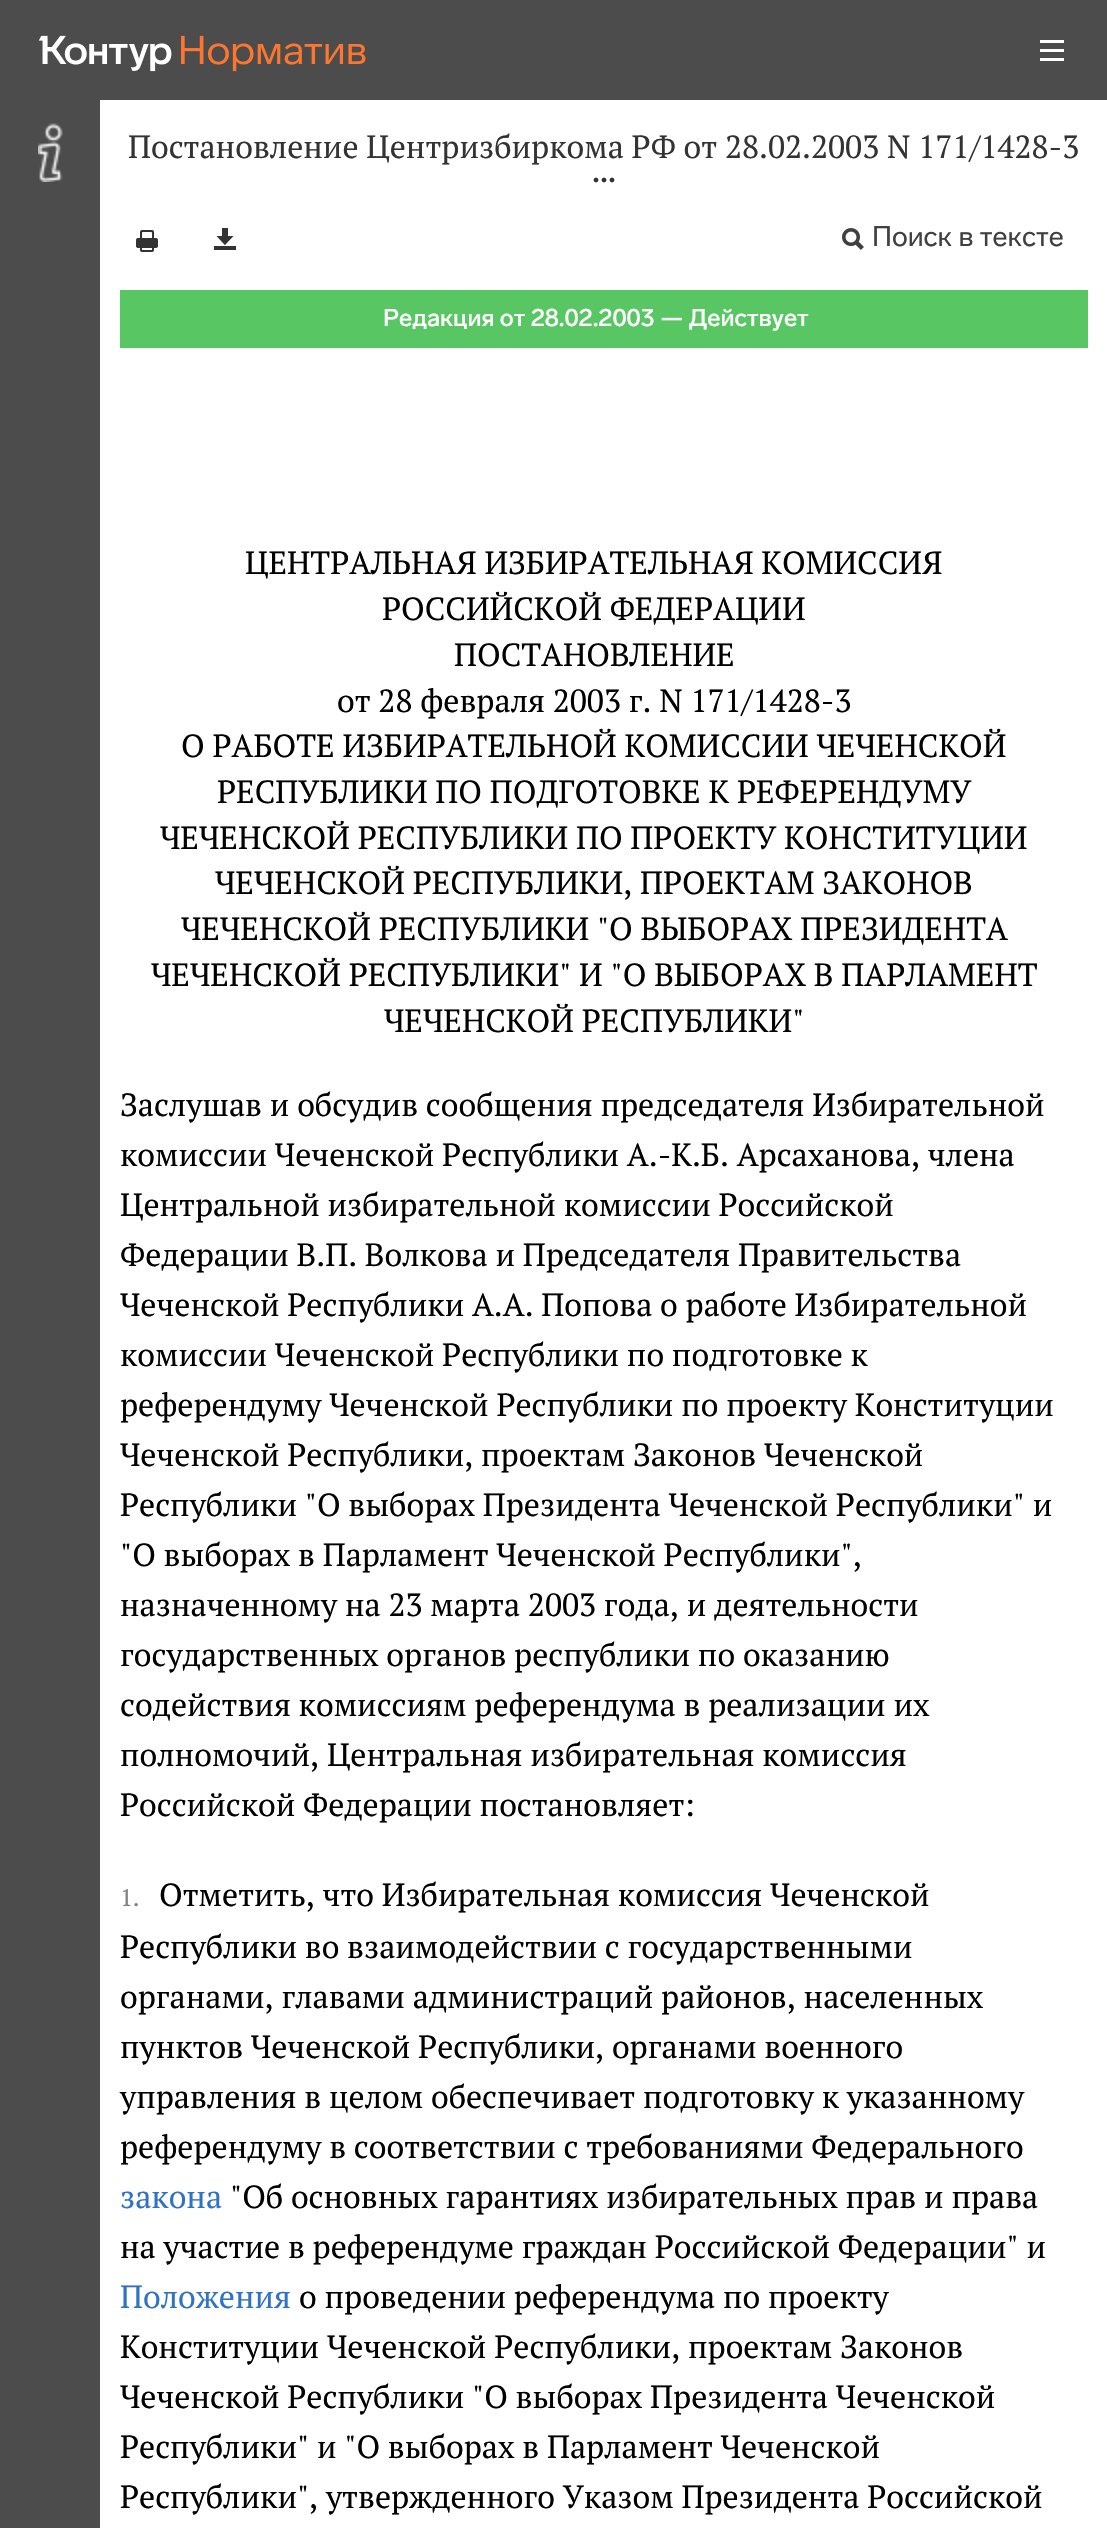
static SkFont makeFont(const char* family, int weight, float size, bool italic = false) {
  SkFontStyle style(weight, SkFontStyle::kNormal_Width,
    italic ? SkFontStyle::kItalic_Slant : SkFontStyle::kUpright_Slant);
  SkFont result(fontMgr->matchFamilyStyle(family, style), size);
  result.setSubpixel(true);
  return result;
}

static void text(SkCanvas* c, const char* s, float x, float y, const SkFont& font, SkColor color) {
  SkPaint ink(SkColor4f::FromColor(color));
  ink.setAntiAlias(true);
  c->drawString(s, x, y, font, ink);
}

static void box(SkCanvas* c, float l, float t, float r, float b, SkColor color) {
  SkPaint ink(SkColor4f::FromColor(color));
  ink.setAntiAlias(true);
  c->drawRect(SkRect::MakeLTRB(l, t, r, b), ink);
}

static void picture(SkCanvas* c, const char* path, float l, float t, float r, float b) {
  auto image = SkImages::DeferredFromEncodedData(SkData::MakeFromFileName(path));
  c->drawImageRect(image, SkRect::MakeLTRB(l, t, r, b), SkSamplingOptions());
}

void draw(SkCanvas* c) {
  SkPaint paint;
  paint.setAntiAlias(true);
  c->clear(0xffffffff);
  box(c, 0, 0, 1107, 100, 0xff4c4c4c);
  picture(c, "img_01.png", 38, 35, 172, 72);
  picture(c, "img_02.png", 181, 35, 366, 72);
  picture(c, "img_03.png", 1040, 40, 1064, 61);
  box(c, 0, 100, 100, 2528, 0xff4c4c4c);
  picture(c, "img_04.png", 38, 123, 63, 182);
  SkFont face1 = makeFont("PT Serif", 400, 32);
  text(c, "Постановление Центризбиркома РФ от 28.02.2003 N 171/1428-3", 128, 158, face1, 0xff333333);
  picture(c, "img_05.png", 593, 177, 615, 183);
  picture(c, "img_06.png", 136, 230, 158, 252);
  picture(c, "img_07.png", 214, 228, 236, 250);
  picture(c, "img_08.png", 842, 228, 864, 250);
  SkFont face2 = makeFont("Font", 400, 28);
  text(c, "Поиск в тексте", 872, 246, face2, 0xff404040);
  box(c, 120, 290, 1088, 348, 0xff57c663);
  SkFont face3 = makeFont("Font", 500, 24);
  text(c, "Редакция от 28.02.2003 — Действует", 383, 326, face3, 0xffffffff);
  text(c, "ЦЕНТРАЛЬНАЯ ИЗБИРАТЕЛЬНАЯ КОМИССИЯ", 245, 574, face1, 0xff000000);
  text(c, "РОССИЙСКОЙ ФЕДЕРАЦИИ", 382, 620, face1, 0xff000000);
  text(c, "ПОСТАНОВЛЕНИЕ", 454, 666, face1, 0xff000000);
  text(c, "от 28 февраля 2003 г. N 171/1428-3", 337, 712, face1, 0xff000000);
  text(c, "О РАБОТЕ ИЗБИРАТЕЛЬНОЙ КОМИССИИ ЧЕЧЕНСКОЙ", 181, 757, face1, 0xff000000);
  text(c, "РЕСПУБЛИКИ ПО ПОДГОТОВКЕ К РЕФЕРЕНДУМУ", 217, 803, face1, 0xff000000);
  text(c, "ЧЕЧЕНСКОЙ РЕСПУБЛИКИ ПО ПРОЕКТУ КОНСТИТУЦИИ", 160, 849, face1, 0xff000000);
  text(c, "ЧЕЧЕНСКОЙ РЕСПУБЛИКИ, ПРОЕКТАМ ЗАКОНОВ", 215, 894, face1, 0xff000000);
  text(c, "ЧЕЧЕНСКОЙ РЕСПУБЛИКИ \"О ВЫБОРАХ ПРЕЗИДЕНТА", 181, 940, face1, 0xff000000);
  text(c, "ЧЕЧЕНСКОЙ РЕСПУБЛИКИ\" И \"О ВЫБОРАХ В ПАРЛАМЕНТ", 151, 986, face1, 0xff000000);
  text(c, "ЧЕЧЕНСКОЙ РЕСПУБЛИКИ\"", 384, 1032, face1, 0xff000000);
  text(c, "Заслушав и обсудив сообщения председателя Избирательной", 120, 1116, face1, 0xff000000);
  text(c, "комиссии Чеченской Республики А.-К.Б. Арсаханова, члена", 120, 1166, face1, 0xff000000);
  text(c, "Центральной избирательной комиссии Российской", 120, 1216, face1, 0xff000000);
  text(c, "Федерации В.П. Волкова и Председателя Правительства", 120, 1266, face1, 0xff000000);
  text(c, "Чеченской Республики А.А. Попова о работе Избирательной", 120, 1316, face1, 0xff000000);
  text(c, "комиссии Чеченской Республики по подготовке к", 120, 1366, face1, 0xff000000);
  text(c, "референдуму Чеченской Республики по проекту Конституции", 120, 1416, face1, 0xff000000);
  text(c, "Чеченской Республики, проектам Законов Чеченской", 120, 1466, face1, 0xff000000);
  text(c, "Республики \"О выборах Президента Чеченской Республики\" и", 120, 1516, face1, 0xff000000);
  text(c, "\"О выборах в Парламент Чеченской Республики\",", 120, 1566, face1, 0xff000000);
  text(c, "назначенному на 23 марта 2003 года, и деятельности", 120, 1616, face1, 0xff000000);
  text(c, "государственных органов республики по оказанию", 120, 1666, face1, 0xff000000);
  text(c, "содействия комиссиям референдума в реализации их", 120, 1716, face1, 0xff000000);
  text(c, "полномочий, Центральная избирательная комиссия", 120, 1766, face1, 0xff000000);
  text(c, "Российской Федерации постановляет:", 120, 1816, face1, 0xff000000);
  SkFont face4 = makeFont("PT Serif", 400, 24);
  text(c, "1.", 120, 1906, face4, 0xff808080);
  text(c, "Отметить, что Избирательная комиссия Чеченской", 159, 1906, face1, 0xff000000);
  text(c, "Республики во взаимодействии с государственными", 120, 1958, face1, 0xff000000);
  text(c, "органами, главами администраций районов, населенных", 120, 2008, face1, 0xff000000);
  text(c, "пунктов Чеченской Республики, органами военного", 120, 2058, face1, 0xff000000);
  text(c, "управления в целом обеспечивает подготовку к указанному", 120, 2108, face1, 0xff000000);
  text(c, "референдуму в соответствии с требованиями Федерального", 120, 2158, face1, 0xff000000);
  text(c, "закона", 120, 2208, face1, 0xff3072c4);
  text(c, "\"Об основных гарантиях избирательных прав и права", 230, 2208, face1, 0xff000000);
  text(c, "на участие в референдуме граждан Российской Федерации\" и", 120, 2258, face1, 0xff000000);
  text(c, "Положения", 120, 2308, face1, 0xff3072c4);
  text(c, "о проведении референдума по проекту", 299, 2308, face1, 0xff000000);
  text(c, "Конституции Чеченской Республики, проектам Законов", 120, 2358, face1, 0xff000000);
  text(c, "Чеченской Республики \"О выборах Президента Чеченской", 120, 2408, face1, 0xff000000);
  text(c, "Республики\" и \"О выборах в Парламент Чеченской", 120, 2458, face1, 0xff000000);
  text(c, "Республики\", утвержденного Указом Президента Российской", 120, 2508, face1, 0xff000000);
}
